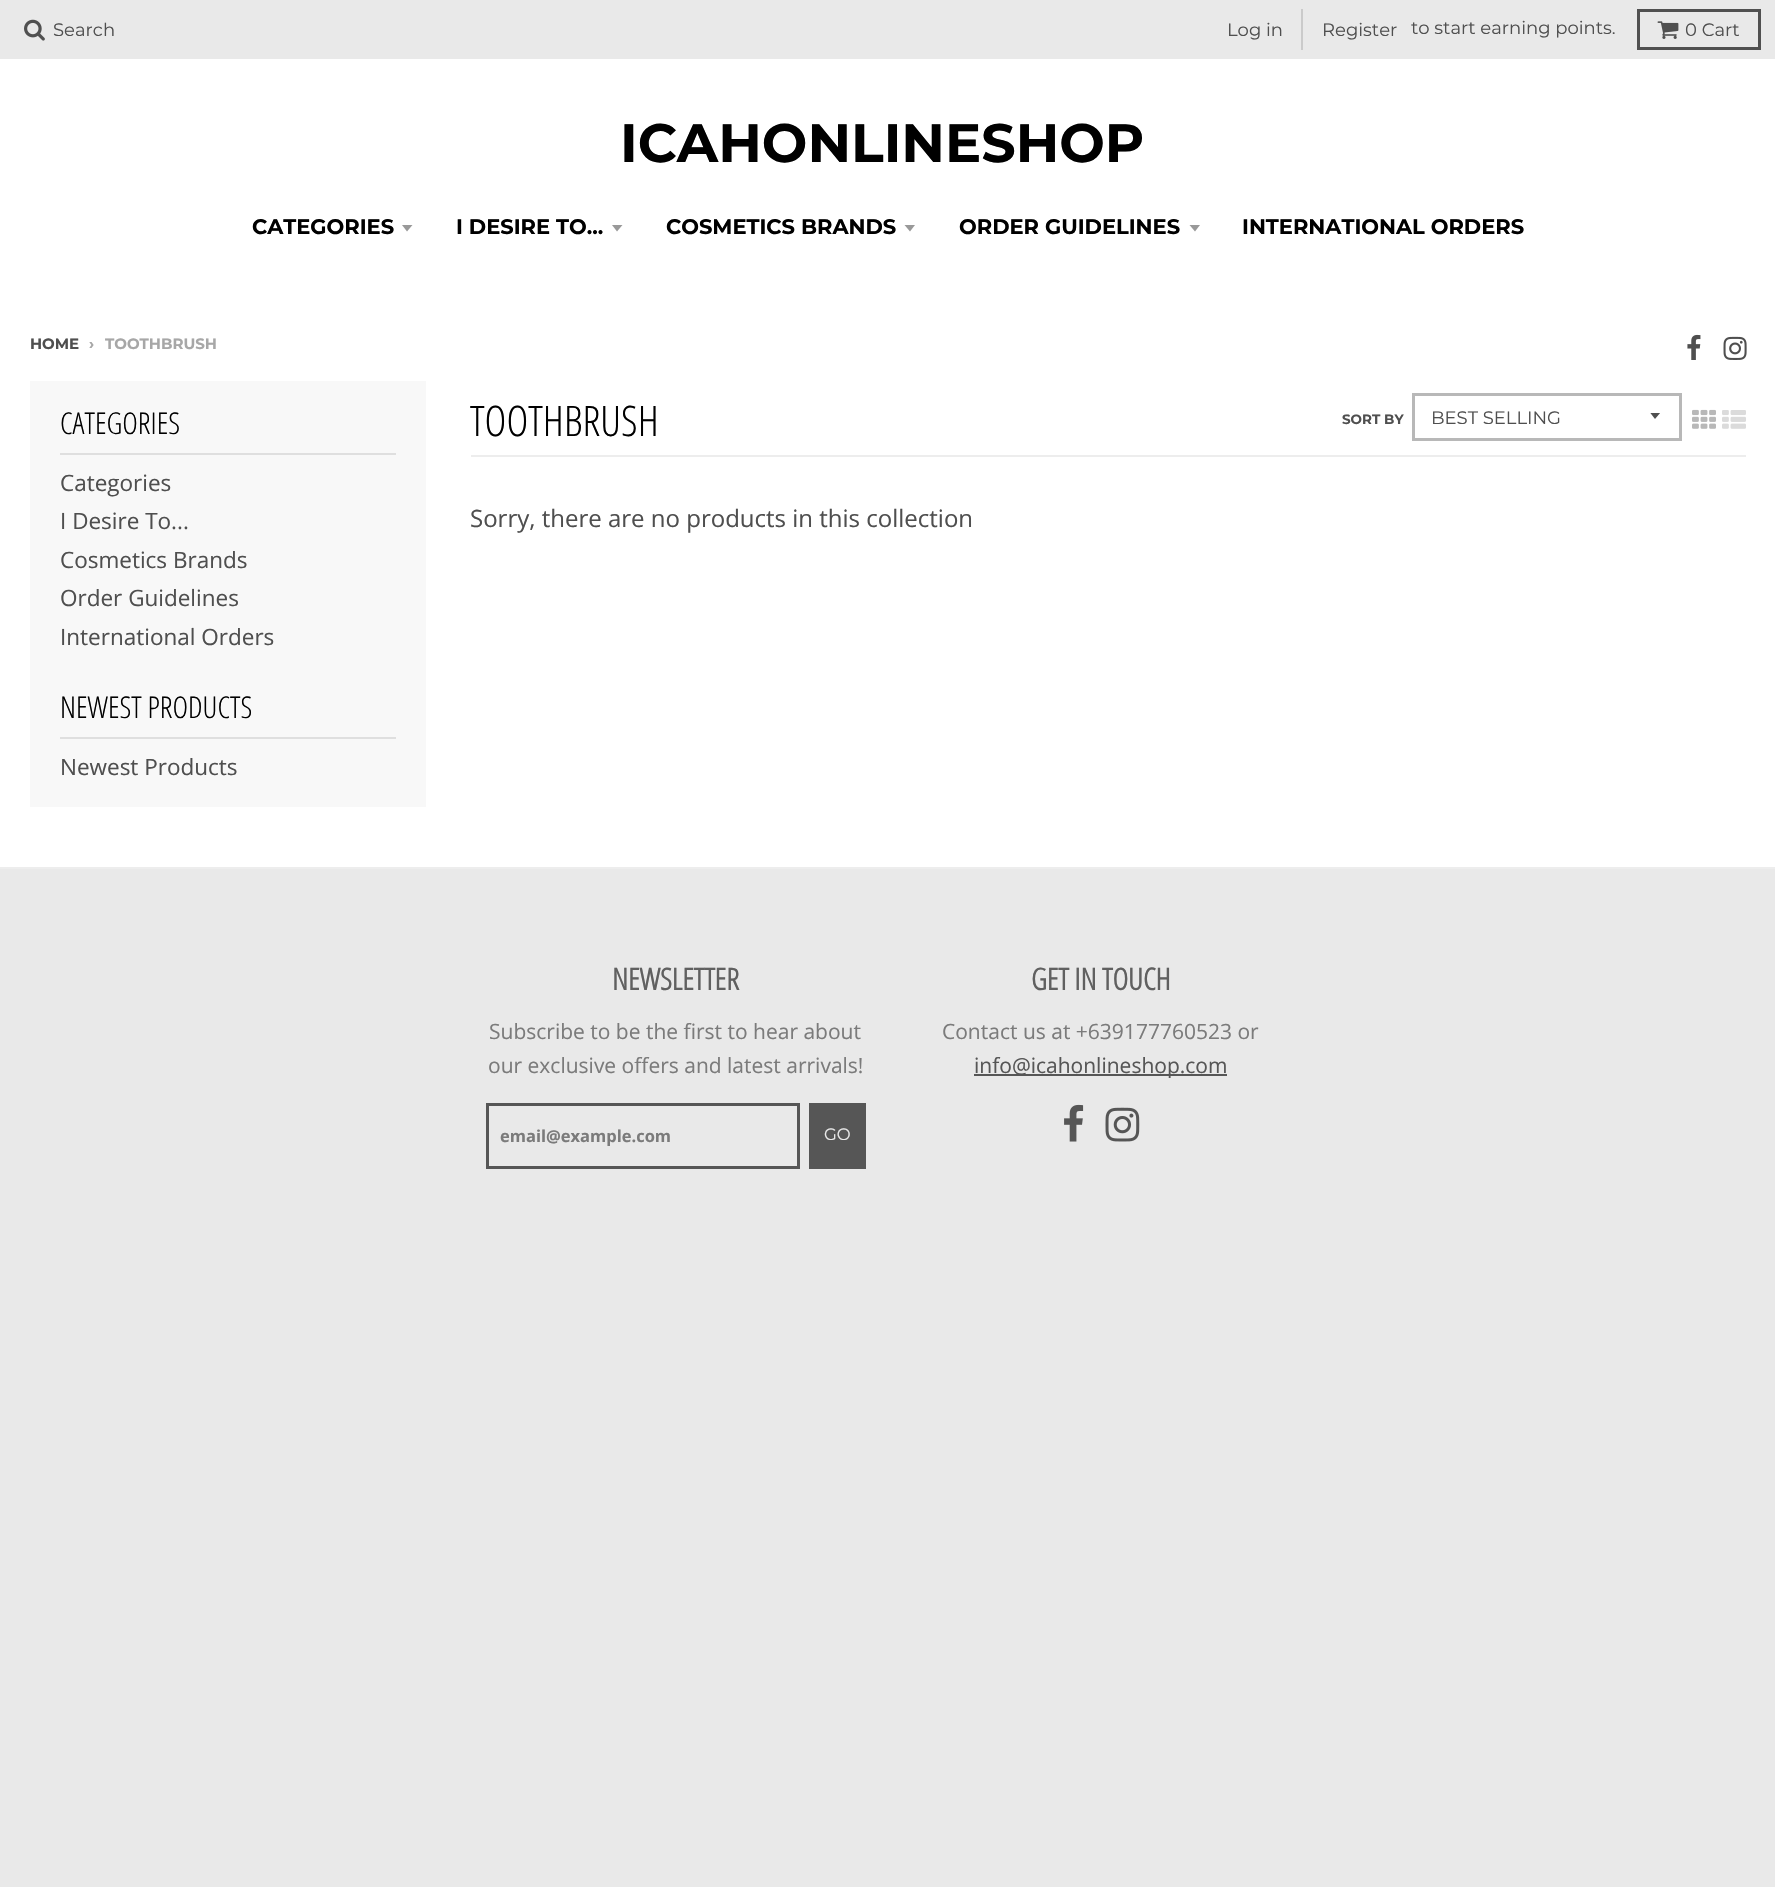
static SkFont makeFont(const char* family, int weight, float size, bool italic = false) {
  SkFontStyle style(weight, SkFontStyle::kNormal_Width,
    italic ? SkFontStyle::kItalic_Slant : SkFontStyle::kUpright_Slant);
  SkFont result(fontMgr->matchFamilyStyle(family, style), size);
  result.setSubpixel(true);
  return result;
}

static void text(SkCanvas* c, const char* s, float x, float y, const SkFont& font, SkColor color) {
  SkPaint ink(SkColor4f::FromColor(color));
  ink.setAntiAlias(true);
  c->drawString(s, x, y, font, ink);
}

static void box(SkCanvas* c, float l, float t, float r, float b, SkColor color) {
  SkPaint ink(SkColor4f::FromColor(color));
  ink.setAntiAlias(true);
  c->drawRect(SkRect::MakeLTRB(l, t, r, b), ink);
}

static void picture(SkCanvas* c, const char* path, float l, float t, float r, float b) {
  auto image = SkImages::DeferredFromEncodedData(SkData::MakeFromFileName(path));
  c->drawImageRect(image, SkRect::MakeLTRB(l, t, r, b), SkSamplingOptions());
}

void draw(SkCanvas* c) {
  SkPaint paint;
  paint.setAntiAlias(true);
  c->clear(0xffe9e9e9);
  box(c, 0, 59, 1775, 867, 0xffffffff);
  picture(c, "img_01.png", 24, 19, 45, 41);
  SkFont face1 = makeFont("Montserrat", 400, 18);
  text(c, "Search", 53, 36, face1, 0xff4f4f4f);
  box(c, 1301, 9, 1303, 50, 0xffcacaca);
  text(c, "Log in", 1227, 36, face1, 0xff4f4f4f);
  text(c, "Register", 1322, 36, face1, 0xff4f4f4f);
  text(c, "to start earning points.", 1411, 34, face1, 0xff4f4f4f);
  paint.setStyle(SkPaint::kStroke_Style);
  paint.setStrokeWidth(3);
  paint.setColor(0xff505050);
  c->drawRect(SkRect::MakeLTRB(1638.5f, 10.5f, 1759.5f, 48.5f), paint);
  picture(c, "img_02.png", 1657, 21, 1679, 39);
  text(c, "0 Cart", 1685, 36, face1, 0xff4f4f4f);
  SkFont face2 = makeFont("Montserrat", 700, 54);
  text(c, "ICAHONLINESHOP", 620, 162, face2, 0xff000000);
  SkFont face3 = makeFont("Montserrat", 700, 21);
  text(c, "CATEGORIES", 252, 234, face3, 0xff000000);
  paint.setStyle(SkPaint::kFill_Style);
  paint.setColor(0xff999999);
  c->drawPath(SkPathBuilder().moveTo(402, 225).lineTo(407, 231.5f).lineTo(412.5f, 225).close().detach(), paint);
  text(c, "I DESIRE TO...", 456, 234, face3, 0xff000000);
  c->drawPath(SkPathBuilder().moveTo(612, 225).lineTo(617, 231.5f).lineTo(622.5f, 225).close().detach(), paint);
  text(c, "COSMETICS BRANDS", 666, 234, face3, 0xff000000);
  c->drawPath(SkPathBuilder().moveTo(904.5f, 225).lineTo(910, 231.5f).lineTo(915, 225).close().detach(), paint);
  text(c, "ORDER GUIDELINES", 959, 234, face3, 0xff000000);
  c->drawPath(SkPathBuilder().moveTo(1189.5f, 225).lineTo(1195, 231.5f).lineTo(1200, 225).close().detach(), paint);
  text(c, "INTERNATIONAL ORDERS", 1242, 234, face3, 0xff000000);
  box(c, 0, 867, 1775, 869, 0xffededed);
  SkFont face4 = makeFont("Montserrat", 700, 15);
  text(c, "HOME", 30, 349, face4, 0xff4f4f4f);
  text(c, "›", 89, 349, face4, 0xffa7a7a7);
  text(c, "TOOTHBRUSH", 105, 349, face4, 0xffa7a7a7);
  picture(c, "img_03.png", 1687, 334, 1701, 360);
  picture(c, "img_04.png", 1723, 336, 1747, 360);
  box(c, 30, 381, 426, 807, 0xfff8f8f8);
  box(c, 60, 453, 396, 455, 0xffdfdfdf);
  SkFont face5 = makeFont("Open Sans Condensed", 300, 30);
  text(c, "CATEGORIES", 60, 434, face5, 0xff000000);
  SkFont face6 = makeFont("Open Sans", 400, 22.5f);
  text(c, "Categories", 60, 491, face6, 0xff4f4f4f);
  text(c, "I Desire To...", 60, 529, face6, 0xff4f4f4f);
  text(c, "Cosmetics Brands", 60, 568, face6, 0xff4f4f4f);
  text(c, "Order Guidelines", 60, 606, face6, 0xff4f4f4f);
  text(c, "International Orders", 60, 645, face6, 0xff4f4f4f);
  box(c, 60, 737, 396, 739, 0xffdfdfdf);
  text(c, "NEWEST PRODUCTS", 60, 718, face5, 0xff000000);
  text(c, "Newest Products", 60, 775, face6, 0xff4f4f4f);
  box(c, 471, 455, 1746, 457, 0xffededed);
  SkFont face7 = makeFont("Open Sans Condensed", 300, 42);
  text(c, "TOOTHBRUSH", 470, 436, face7, 0xff000000);
  SkFont face8 = makeFont("Montserrat", 700, 13.5f);
  text(c, "SORT BY", 1342, 424, face8, 0xff4f4f4f);
  c->save();
  c->clipRect(SkRect::MakeLTRB(1650, 413, 1662, 420));
  paint.setColor(0xff4f4f4f);
  c->drawPath(SkPathBuilder().moveTo(1650, 412.5f).lineTo(1655, 419).lineTo(1660.5f, 412.5f).close().detach(), paint);
  c->restore();
  paint.setStyle(SkPaint::kStroke_Style);
  paint.setColor(0xffb8b8b8);
  c->drawRect(SkRect::MakeLTRB(1413.5f, 394.5f, 1680.5f, 439.5f), paint);
  text(c, "BEST SELLING", 1431, 424, face1, 0xff4f4f4f);
  picture(c, "img_05.png", 1692, 409, 1716, 429);
  picture(c, "img_06.png", 1722, 410, 1746, 429);
  SkFont face9 = makeFont("Open Sans", 400, 24);
  text(c, "Sorry, there are no products in this collection", 470, 527, face9, 0xff4f4f4f);
  SkFont face10 = makeFont("Open Sans Condensed", 700, 30);
  text(c, "NEWSLETTER", 612, 990, face10, 0xff606060);
  SkFont face11 = makeFont("Open Sans", 400, 21);
  text(c, "Subscribe to be the first to hear about", 489, 1039, face11, 0xff7b7b7b);
  text(c, "our exclusive offers and latest arrivals!", 488, 1073, face11, 0xff7b7b7b);
  paint.setColor(0xff565656);
  c->drawRect(SkRect::MakeLTRB(487.5f, 1104.5f, 798.5f, 1167.5f), paint);
  SkFont face12 = makeFont("Open Sans", 700, 16.5f);
  text(c, "email@example.com", 500, 1142, face12, 0xff7b7b7b);
  box(c, 809, 1103, 866, 1169, 0xff565656);
  SkFont face13 = makeFont("Montserrat", 400, 16.5f);
  text(c, "GO", 824, 1140, face13, 0xffe9e9e9);
  text(c, "GET IN TOUCH", 1031, 990, face10, 0xff606060);
  text(c, "Contact us at +639177760523 or", 942, 1039, face11, 0xff7b7b7b);
  box(c, 974, 1074, 1227, 1076, 0xff565656);
  text(c, "info@icahonlineshop.com", 974, 1073, face11, 0xff565656);
  picture(c, "img_07.png", 1064, 1104, 1084, 1142);
  picture(c, "img_08.png", 1105, 1107, 1140, 1142);
}
